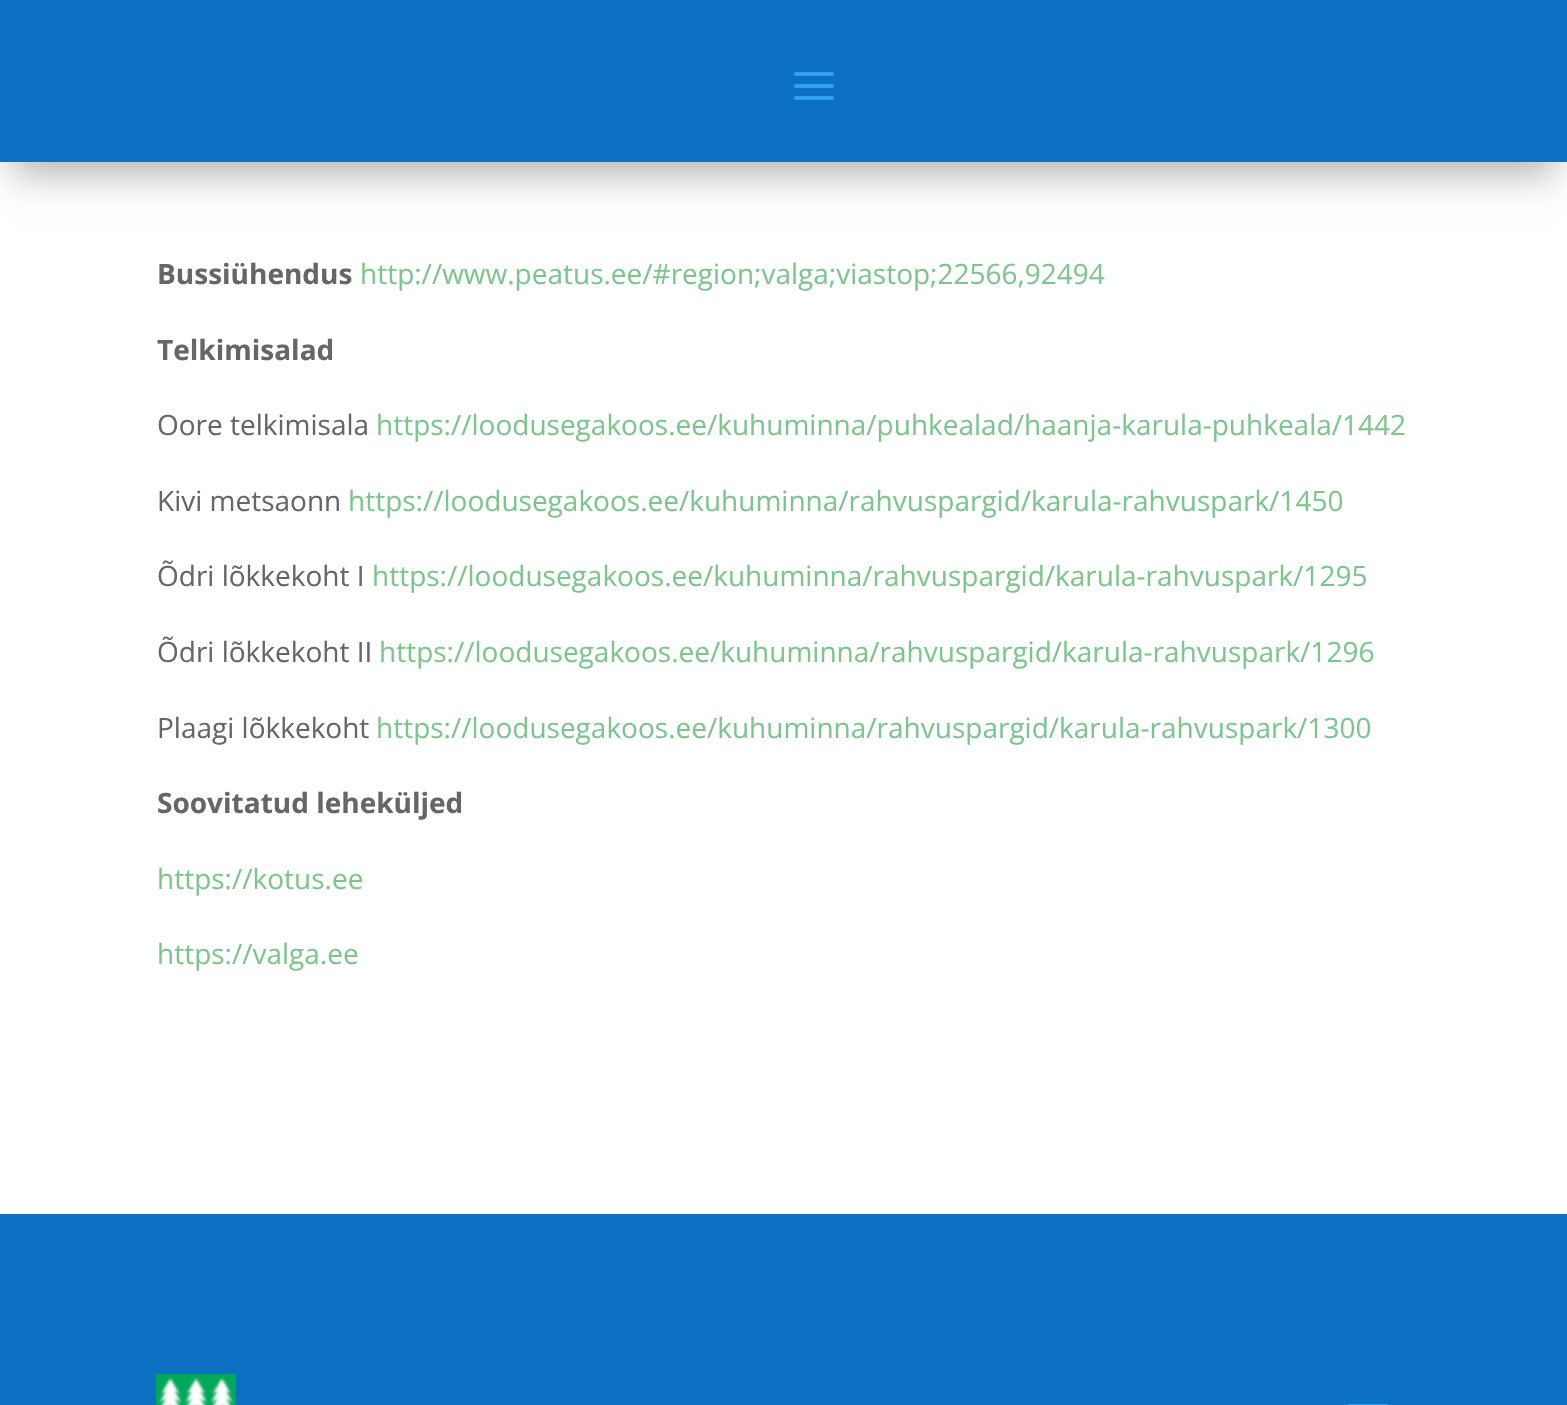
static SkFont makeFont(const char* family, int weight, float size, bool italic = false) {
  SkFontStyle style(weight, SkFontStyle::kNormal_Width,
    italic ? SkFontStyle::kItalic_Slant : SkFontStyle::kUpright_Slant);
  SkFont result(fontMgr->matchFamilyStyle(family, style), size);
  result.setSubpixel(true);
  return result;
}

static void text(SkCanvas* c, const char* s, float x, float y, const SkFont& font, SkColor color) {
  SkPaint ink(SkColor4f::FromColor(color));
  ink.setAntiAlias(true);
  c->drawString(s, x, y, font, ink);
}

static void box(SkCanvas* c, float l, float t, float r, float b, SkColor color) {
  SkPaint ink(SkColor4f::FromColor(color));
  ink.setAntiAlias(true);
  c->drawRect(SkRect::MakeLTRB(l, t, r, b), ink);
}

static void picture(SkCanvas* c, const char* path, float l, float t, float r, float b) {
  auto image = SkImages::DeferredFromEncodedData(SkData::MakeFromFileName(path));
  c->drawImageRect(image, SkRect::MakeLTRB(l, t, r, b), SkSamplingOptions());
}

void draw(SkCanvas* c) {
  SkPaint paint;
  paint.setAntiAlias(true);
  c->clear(0xffffffff);
  paint.setColor(0x4d000000);
  paint.setMaskFilter(SkMaskFilter::MakeBlur(kNormal_SkBlurStyle, 18));
  c->drawRect(SkRect::MakeLTRB(12, 36, 1556, 174), paint);
  paint.setMaskFilter(nullptr);
  box(c, 0, 0, 1567, 162, 0xff0c71c3);
  picture(c, "img_01.png", 794, 72, 834, 100);
  SkFont face1 = makeFont("Open Sans", 700, 28);
  text(c, "Bussiühendus", 157, 284, face1, 0xff666666);
  SkFont face2 = makeFont("Open Sans", 400, 28);
  text(c, "http://www.peatus.ee/#region;valga;viastop;22566,92494", 360, 284, face2, 0xff7cc68d);
  text(c, "Telkimisalad", 157, 360, face1, 0xff666666);
  text(c, "Oore telkimisala", 157, 435, face2, 0xff666666);
  text(c, "https://loodusegakoos.ee/kuhuminna/puhkealad/haanja-karula-puhkeala/1442", 376, 435, face2, 0xff7cc68d);
  text(c, "Kivi metsaonn", 157, 511, face2, 0xff666666);
  text(c, "https://loodusegakoos.ee/kuhuminna/rahvuspargid/karula-rahvuspark/1450", 348, 511, face2, 0xff7cc68d);
  text(c, "Õdri lõkkekoht I", 157, 586, face2, 0xff666666);
  text(c, "https://loodusegakoos.ee/kuhuminna/rahvuspargid/karula-rahvuspark/1295", 372, 586, face2, 0xff7cc68d);
  text(c, "Õdri lõkkekoht II", 157, 662, face2, 0xff666666);
  text(c, "https://loodusegakoos.ee/kuhuminna/rahvuspargid/karula-rahvuspark/1296", 379, 662, face2, 0xff7cc68d);
  text(c, "Plaagi lõkkekoht", 157, 738, face2, 0xff666666);
  text(c, "https://loodusegakoos.ee/kuhuminna/rahvuspargid/karula-rahvuspark/1300", 376, 738, face2, 0xff7cc68d);
  text(c, "Soovitatud leheküljed", 157, 813, face1, 0xff666666);
  text(c, "https://kotus.ee", 157, 889, face2, 0xff7cc68d);
  text(c, "https://valga.ee", 157, 964, face2, 0xff7cc68d);
  box(c, 0, 1214, 1567, 1405, 0xff0c71c3);
  picture(c, "img_02.png", 156, 1374, 236, 1405);
  picture(c, "img_03.png", 1348, 1404, 1388, 1405);
}
